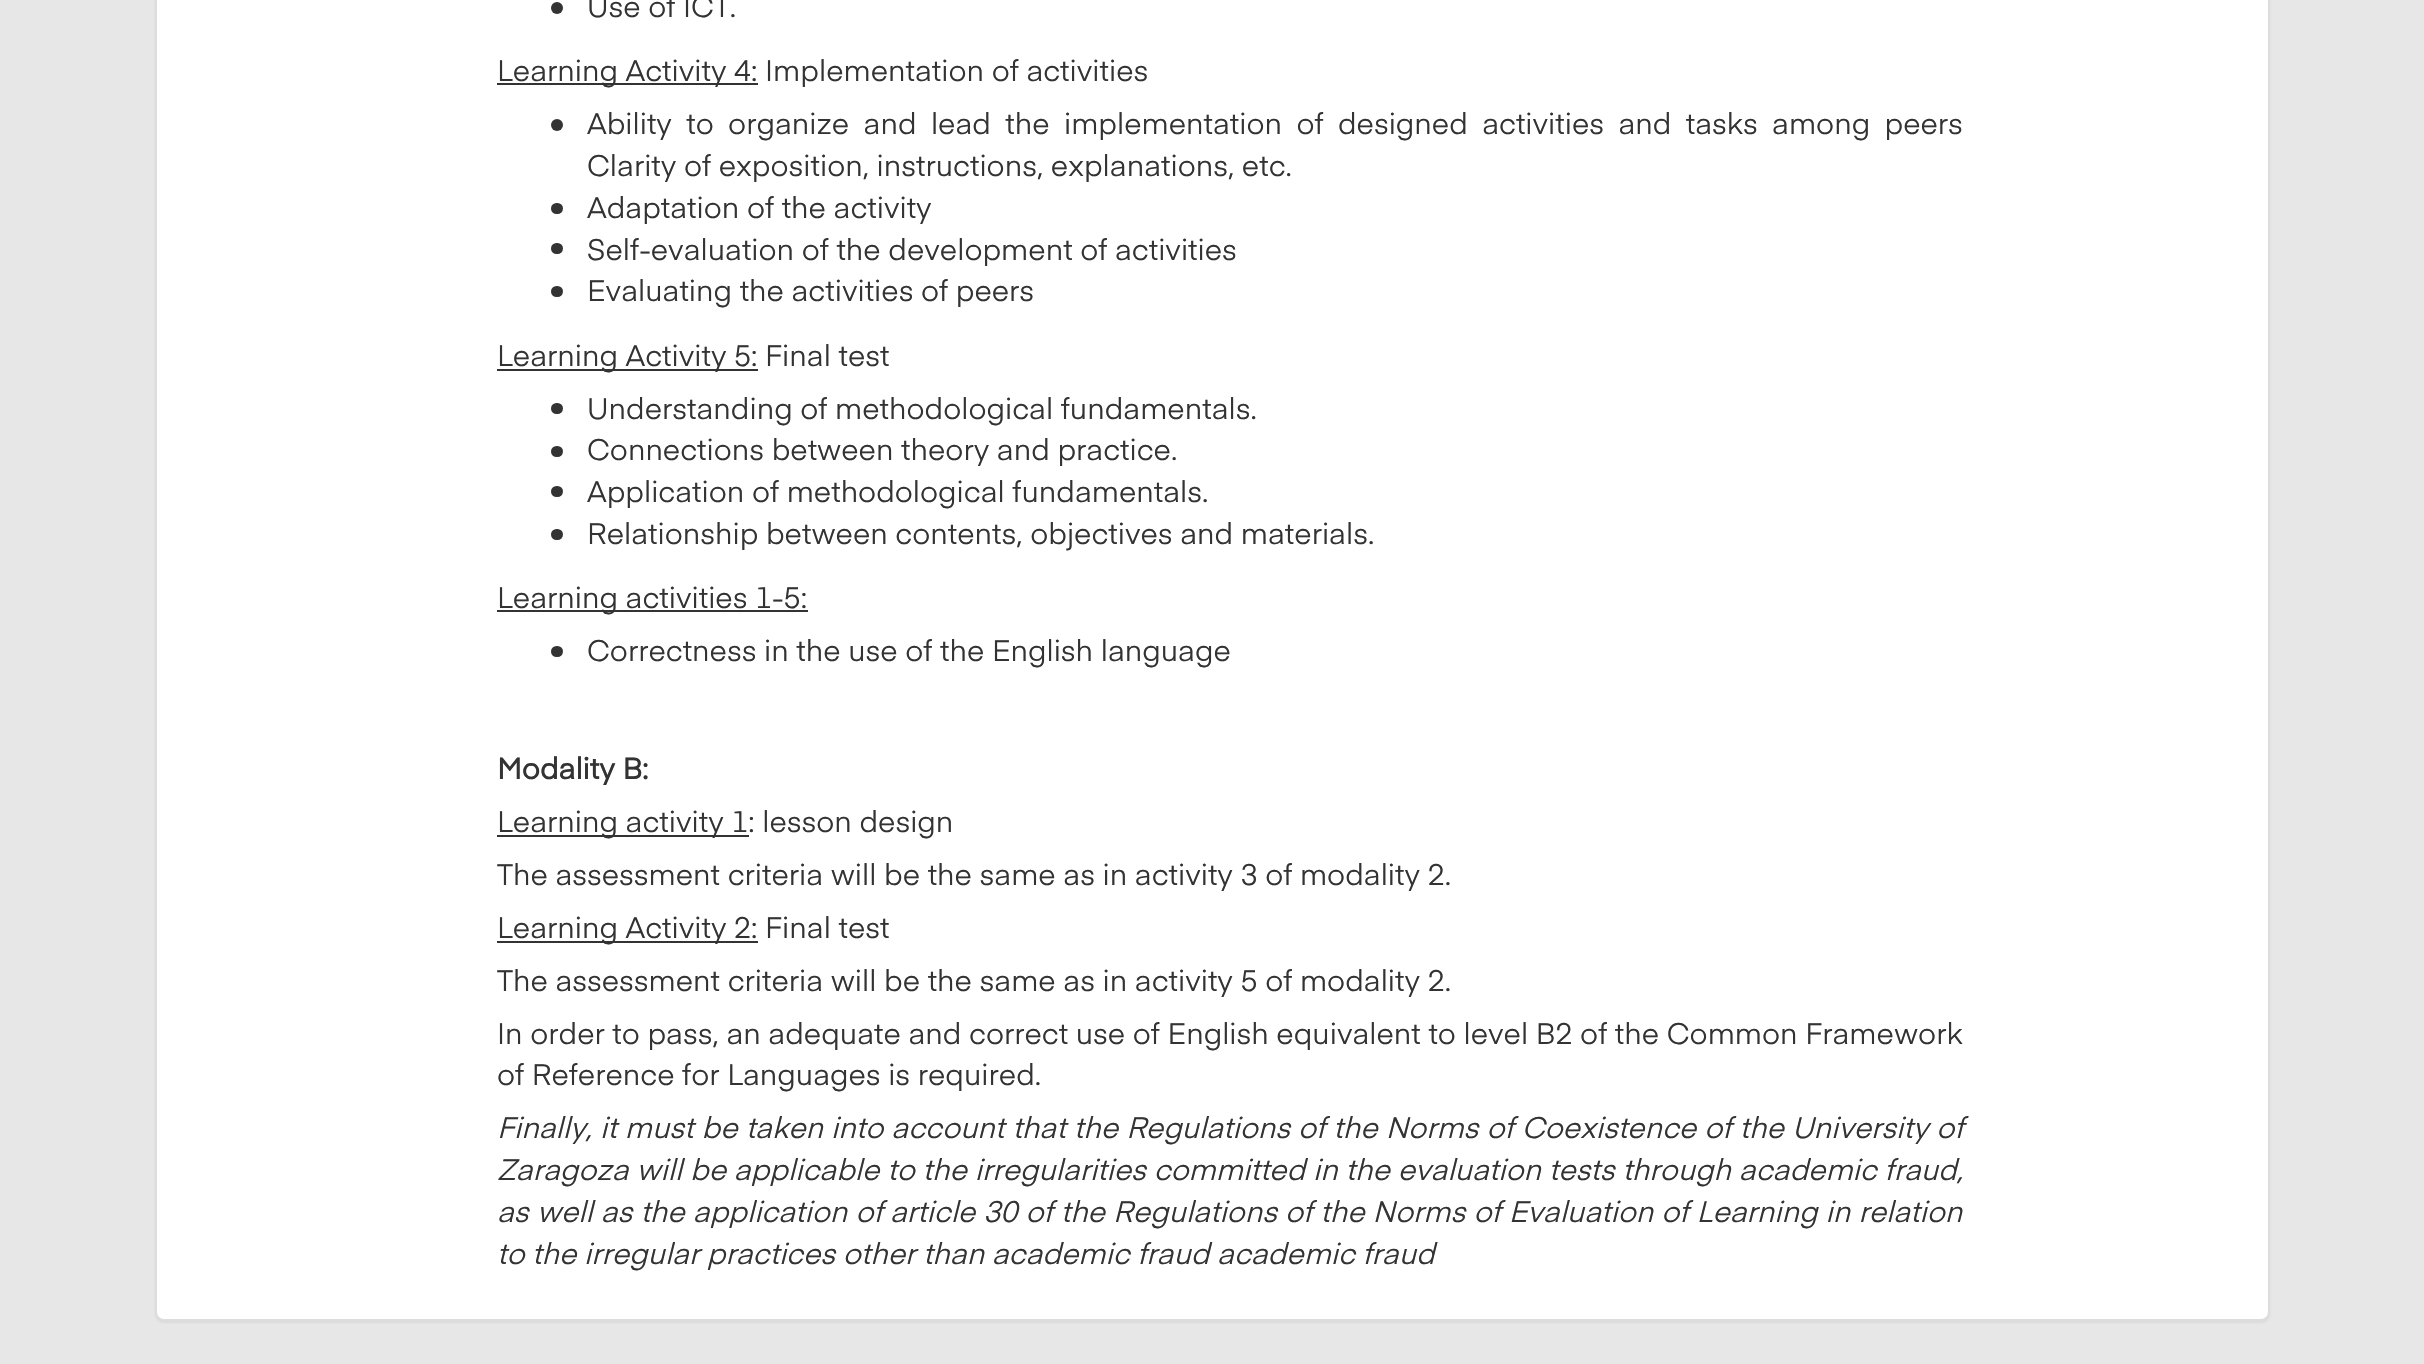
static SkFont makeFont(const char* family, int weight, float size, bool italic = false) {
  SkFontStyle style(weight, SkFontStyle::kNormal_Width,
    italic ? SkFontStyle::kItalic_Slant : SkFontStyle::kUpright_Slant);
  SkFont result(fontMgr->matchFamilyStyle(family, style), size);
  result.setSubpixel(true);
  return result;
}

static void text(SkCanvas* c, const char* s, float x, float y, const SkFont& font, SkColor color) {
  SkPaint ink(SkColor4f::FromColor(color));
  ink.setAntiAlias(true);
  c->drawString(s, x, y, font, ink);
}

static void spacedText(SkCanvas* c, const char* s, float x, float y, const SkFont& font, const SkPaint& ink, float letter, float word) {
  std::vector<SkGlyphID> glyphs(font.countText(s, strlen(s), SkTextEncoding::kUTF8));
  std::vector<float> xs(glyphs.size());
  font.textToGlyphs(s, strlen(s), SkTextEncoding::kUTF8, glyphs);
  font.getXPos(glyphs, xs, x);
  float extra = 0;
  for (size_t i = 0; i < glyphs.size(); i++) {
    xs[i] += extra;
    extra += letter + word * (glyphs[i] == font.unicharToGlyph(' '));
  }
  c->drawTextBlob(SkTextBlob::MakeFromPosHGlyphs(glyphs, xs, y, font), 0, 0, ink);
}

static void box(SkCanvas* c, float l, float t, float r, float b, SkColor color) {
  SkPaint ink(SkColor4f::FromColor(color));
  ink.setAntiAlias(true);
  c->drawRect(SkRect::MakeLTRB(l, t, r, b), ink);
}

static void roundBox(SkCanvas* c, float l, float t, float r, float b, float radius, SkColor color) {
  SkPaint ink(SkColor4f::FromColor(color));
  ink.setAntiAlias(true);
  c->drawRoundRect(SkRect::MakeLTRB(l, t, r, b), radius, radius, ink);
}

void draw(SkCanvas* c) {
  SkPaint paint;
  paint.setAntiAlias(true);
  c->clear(0xffe7e7e7);
  paint.setColor(0x0d000000);
  paint.setMaskFilter(SkMaskFilter::MakeBlur(kNormal_SkBlurStyle, 1));
  c->drawRoundRect(SkRect::MakeLTRB(155, -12, 2270, 1323), 9, 9, paint);
  paint.setMaskFilter(nullptr);
  paint.setColor(0xffffffff);
  c->drawRoundRect(SkRect::MakeLTRB(156, -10, 2269, 1320), 8, 8, paint);
  paint.setStyle(SkPaint::kStroke_Style);
  paint.setStrokeWidth(2);
  paint.setColor(0xffdddddd);
  c->drawRoundRect(SkRect::MakeLTRB(156, -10, 2269, 1320), 8, 8, paint);
  paint.setStyle(SkPaint::kFill_Style);
  paint.setColor(0xff333333);
  c->drawCircle(557, 8, 6, paint);
  SkFont face1 = makeFont("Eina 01", 400, 29.25f);
  text(c, "Use of ICT.", 587, 17, face1, 0xff333333);
  box(c, 497, 83, 758, 85, 0xff333333);
  text(c, "Learning Activity 4: Implementation of activities", 497, 81, face1, 0xff333333);
  c->drawCircle(557, 125, 6, paint);
  spacedText(c, "Ability to organize and lead the implementation of designed activities and tasks among peers", 587, 134, face1, paint, 0, 6.75f);
  text(c, "Clarity of exposition, instructions, explanations, etc.", 587, 176, face1, 0xff333333);
  roundBox(c, 551, 203, 563, 214, 5.5f, 0xff333333);
  text(c, "Adaptation of the activity", 587, 218, face1, 0xff333333);
  roundBox(c, 551, 243, 563, 254, 5.5f, 0xff333333);
  text(c, "Self-evaluation of the development of activities", 587, 260, face1, 0xff333333);
  roundBox(c, 551, 286, 563, 297, 5.5f, 0xff333333);
  text(c, "Evaluating the activities of peers", 587, 301, face1, 0xff333333);
  box(c, 497, 369, 758, 371, 0xff333333);
  text(c, "Learning Activity 5: Final test", 497, 366, face1, 0xff333333);
  roundBox(c, 551, 403, 563, 414, 5.5f, 0xff333333);
  text(c, "Understanding of methodological fundamentals.", 587, 419, face1, 0xff333333);
  roundBox(c, 551, 446, 563, 457, 5.5f, 0xff333333);
  text(c, "Connections between theory and practice.", 587, 460, face1, 0xff333333);
  roundBox(c, 551, 486, 563, 497, 5.5f, 0xff333333);
  text(c, "Application of methodological fundamentals.", 587, 502, face1, 0xff333333);
  roundBox(c, 551, 529, 563, 540, 5.5f, 0xff333333);
  text(c, "Relationship between contents, objectives and materials.", 587, 544, face1, 0xff333333);
  box(c, 497, 610, 808, 612, 0xff333333);
  text(c, "Learning activities 1-5:", 497, 608, face1, 0xff333333);
  roundBox(c, 551, 646, 563, 657, 5.5f, 0xff333333);
  text(c, "Correctness in the use of the English language", 587, 661, face1, 0xff333333);
  SkFont face2 = makeFont("Eina 01", 700, 29.25f);
  text(c, "Modality B:", 497, 779, face2, 0xff333333);
  box(c, 497, 835, 749, 837, 0xff333333);
  text(c, "Learning activity 1: lesson design", 497, 832, face1, 0xff333333);
  text(c, "The assessment criteria will be the same as in activity 3 of modality 2.", 497, 885, face1, 0xff333333);
  box(c, 497, 941, 758, 943, 0xff333333);
  text(c, "Learning Activity 2: Final test", 497, 938, face1, 0xff333333);
  text(c, "The assessment criteria will be the same as in activity 5 of modality 2.", 497, 991, face1, 0xff333333);
  text(c, "In order to pass, an adequate and correct use of English equivalent to level B2 of the Common Framework", 497, 1044, face1, 0xff333333);
  text(c, "of Reference for Languages is required.", 497, 1085, face1, 0xff333333);
  SkFont face3 = makeFont("Eina 01", 400, 29.25f, true);
  spacedText(c, "Finally, it must be taken into account that the Regulations of the Norms of Coexistence of the University of", 497, 1138, face3, paint, 0, 0.5f);
  spacedText(c, "Zaragoza will be applicable to the irregularities committed in the evaluation tests through academic fraud,", 497, 1180, face3, paint, 0, 0.25f);
  spacedText(c, "as well as the application of", 497, 1222, face3, paint, 0, 0.5f);
  spacedText(c, "article 30 of the Regulations of the Norms of Evaluation of Learning in relation", 890, 1222, face3, paint, 0, 0.5f);
  text(c, "to the irregular practices other than academic fraud academic fraud", 497, 1264, face3, 0xff333333);
}
